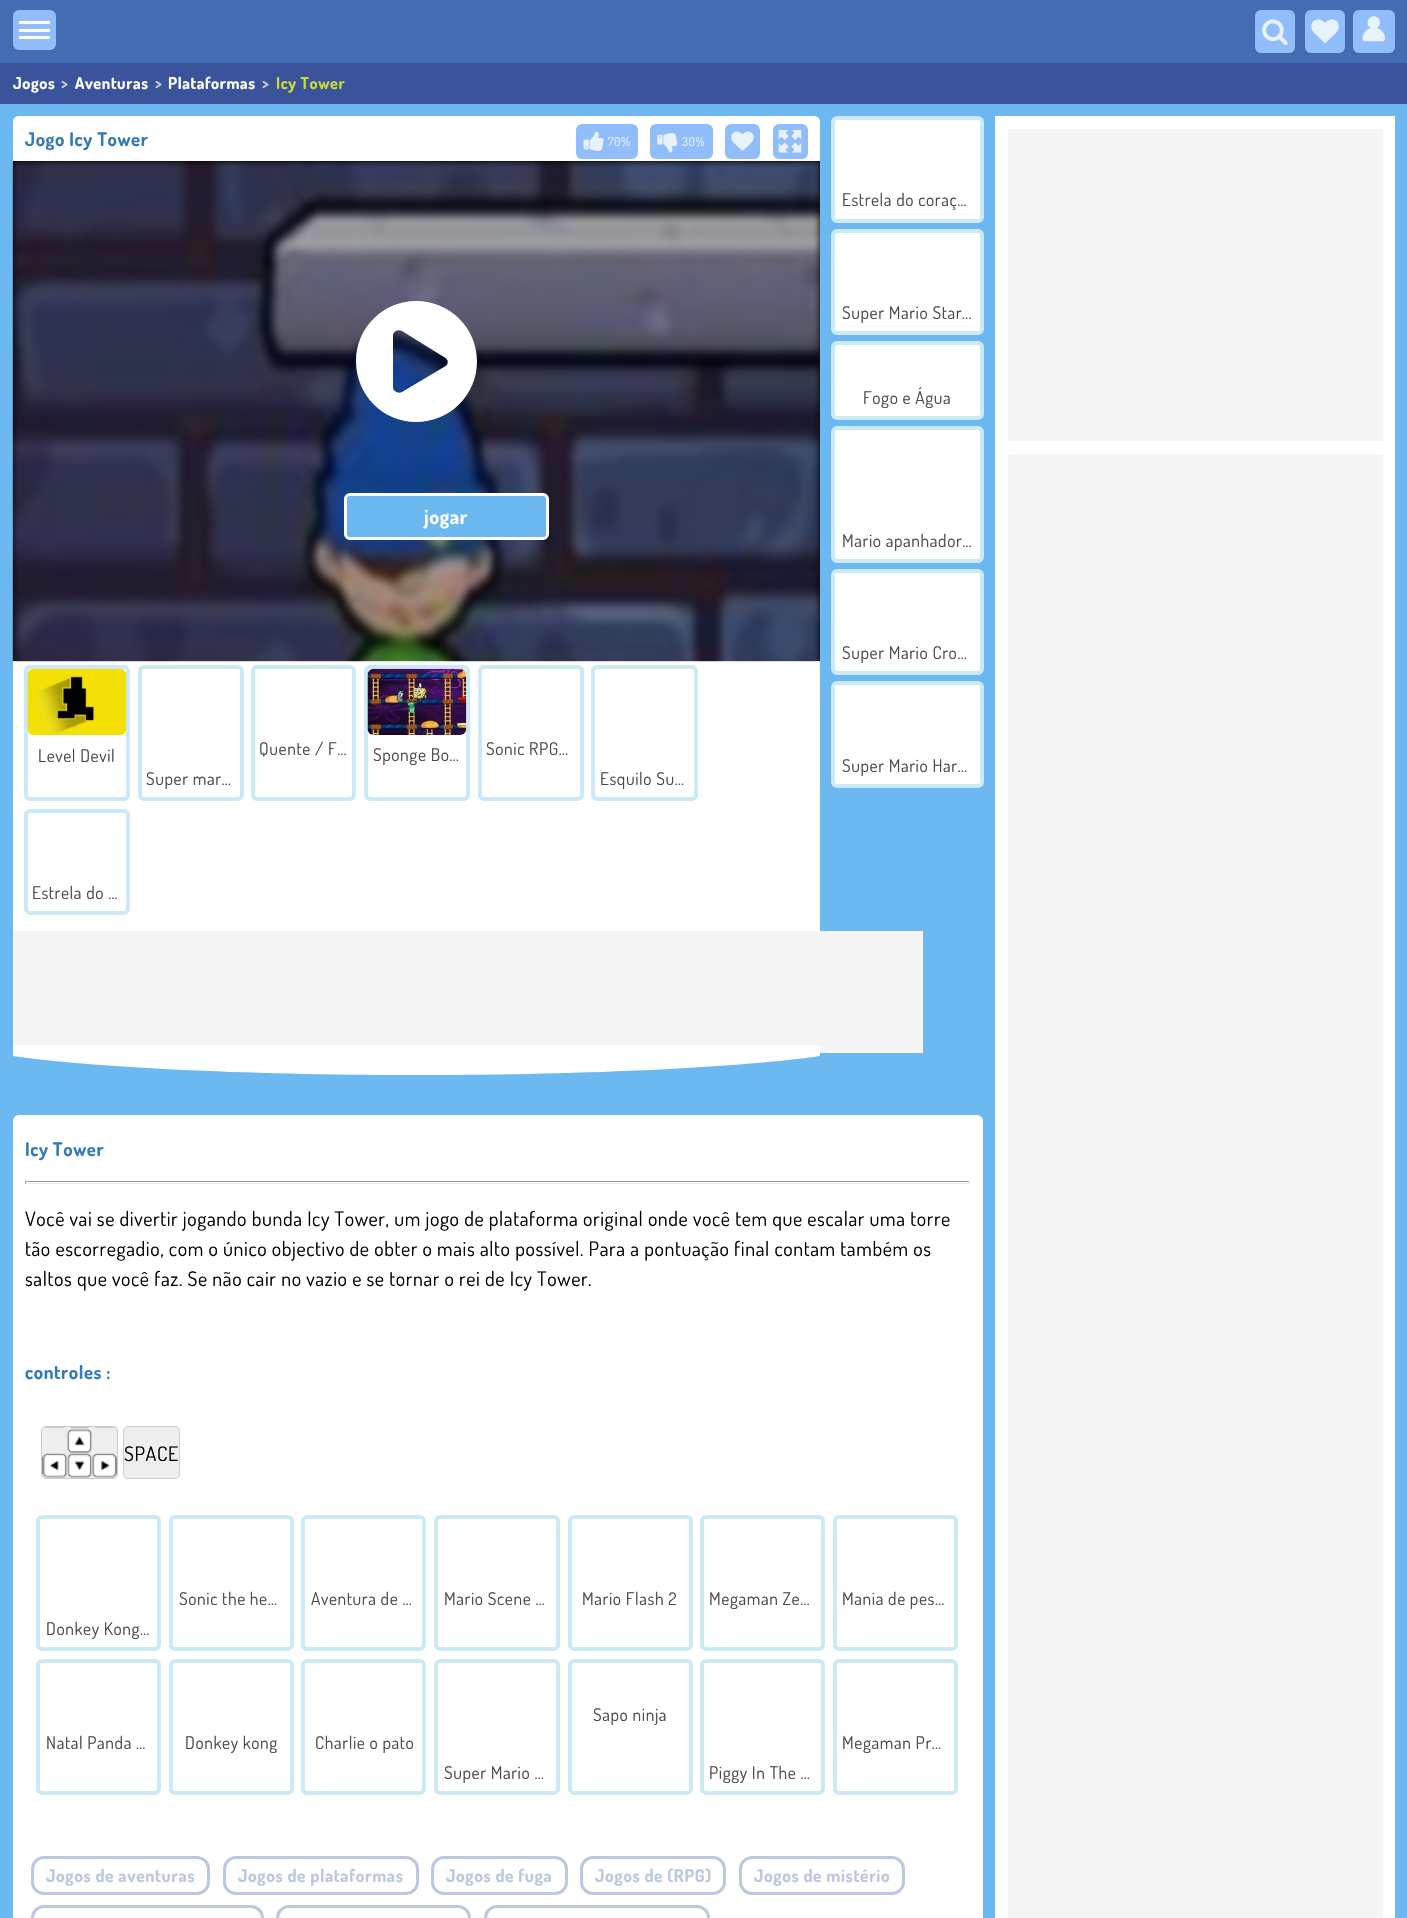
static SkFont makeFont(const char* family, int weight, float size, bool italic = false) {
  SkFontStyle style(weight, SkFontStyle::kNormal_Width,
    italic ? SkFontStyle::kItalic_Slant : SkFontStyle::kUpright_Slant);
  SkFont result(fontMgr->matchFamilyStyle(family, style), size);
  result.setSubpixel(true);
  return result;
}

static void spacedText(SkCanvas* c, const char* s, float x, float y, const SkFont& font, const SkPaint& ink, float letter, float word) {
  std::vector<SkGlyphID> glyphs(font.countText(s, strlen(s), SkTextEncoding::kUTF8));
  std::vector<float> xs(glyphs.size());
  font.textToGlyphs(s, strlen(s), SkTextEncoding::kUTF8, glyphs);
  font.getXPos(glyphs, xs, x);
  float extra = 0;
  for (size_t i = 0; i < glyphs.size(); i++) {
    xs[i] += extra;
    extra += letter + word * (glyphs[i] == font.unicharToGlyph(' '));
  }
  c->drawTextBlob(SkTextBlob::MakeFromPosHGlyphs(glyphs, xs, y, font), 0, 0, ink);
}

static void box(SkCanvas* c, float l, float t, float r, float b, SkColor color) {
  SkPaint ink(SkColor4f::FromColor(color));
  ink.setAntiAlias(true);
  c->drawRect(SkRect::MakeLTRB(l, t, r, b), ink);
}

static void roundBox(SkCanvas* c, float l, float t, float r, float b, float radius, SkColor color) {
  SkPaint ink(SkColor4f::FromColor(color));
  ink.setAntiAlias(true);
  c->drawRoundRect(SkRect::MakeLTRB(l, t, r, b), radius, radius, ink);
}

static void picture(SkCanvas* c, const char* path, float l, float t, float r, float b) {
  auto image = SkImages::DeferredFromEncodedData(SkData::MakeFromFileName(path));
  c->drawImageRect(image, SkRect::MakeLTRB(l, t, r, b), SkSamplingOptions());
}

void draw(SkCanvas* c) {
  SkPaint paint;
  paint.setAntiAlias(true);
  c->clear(0xff6bb9f0);
  box(c, 0, 0, 1407, 63, 0xff446cb3);
  roundBox(c, 13, 10, 56, 50, 6, 0xff91befa);
  box(c, 19, 21, 50, 24, 0xffffffff);
  box(c, 19, 29, 50, 32, 0xffffffff);
  box(c, 19, 36, 50, 39, 0xffffffff);
  roundBox(c, 1255, 10, 1295, 53, 6, 0xff91befa);
  picture(c, "img_01.png", 1262, 19, 1288, 45);
  roundBox(c, 1305, 10, 1345, 53, 6, 0xff91befa);
  picture(c, "img_02.png", 1311, 19, 1339, 43);
  roundBox(c, 1353, 10, 1395, 53, 6, 0xff91befa);
  picture(c, "img_03.png", 1362, 16, 1385, 42);
  box(c, 0, 63, 1407, 104, 0xff3a539b);
  SkFont face1 = makeFont("Dosis", 700, 16.25f);
  paint.setColor(0xffffffff);
  spacedText(c, "Jogos", 13, 89, face1, paint, 0.6f, 0);
  paint.setColor(0xffcccccc);
  spacedText(c, ">", 61, 89, face1, paint, 0.6f, 0);
  paint.setColor(0xffffffff);
  spacedText(c, "Aventuras", 75, 89, face1, paint, 0.6f, 0);
  paint.setColor(0xffcccccc);
  spacedText(c, ">", 155, 89, face1, paint, 0.6f, 0);
  paint.setColor(0xffffffff);
  spacedText(c, "Plataformas", 168, 89, face1, paint, 0.6f, 0);
  paint.setColor(0xffcccccc);
  spacedText(c, ">", 262, 89, face1, paint, 0.6f, 0);
  paint.setColor(0xffcbdb38);
  spacedText(c, "Icy Tower", 276, 89, face1, paint, 0.6f, 0);
  paint.setColor(0xffffffff);
  c->drawPath(SkPathBuilder().moveTo(19, 116).lineTo(814, 116).cubicTo(817.5f, 116, 820, 118.5f, 820, 122).lineTo(820, 1053).lineTo(13, 1053).lineTo(13, 122).cubicTo(13, 118.5f, 15.5f, 116, 19, 116).close().detach(), paint);
  SkFont face2 = makeFont("Dosis", 700, 18.75f);
  paint.setColor(0xff337ab7);
  spacedText(c, "Jogo Icy Tower", 25, 146, face2, paint, 0.6f, 0);
  roundBox(c, 576, 124, 638, 159, 6, 0xff91befa);
  picture(c, "img_04.png", 583, 131, 604, 151);
  SkFont face3 = makeFont("Dosis", 400, 12);
  paint.setColor(0xffe8f2fa);
  spacedText(c, "70%", 608, 146, face3, paint, 0.6f, 0);
  roundBox(c, 650, 124, 713, 159, 6, 0xff91befa);
  picture(c, "img_05.png", 657, 133, 678, 153);
  spacedText(c, "30%", 682, 146, face3, paint, 0.6f, 0);
  roundBox(c, 725, 124, 760, 159, 6, 0xff91befa);
  picture(c, "img_06.png", 731, 131, 754, 151);
  roundBox(c, 773, 124, 808, 159, 6, 0xff91befa);
  picture(c, "img_07.png", 778, 130, 802, 153);
  box(c, 13, 161, 820, 661, 0xff000000);
  picture(c, "img_08.png", 12, 161, 820, 662);
  paint.setColor(0xffffffff);
  c->drawPath(SkPathBuilder().moveTo(416, 301).cubicTo(383, 301, 356, 328, 356, 361).cubicTo(356, 395, 383, 422, 416, 422).cubicTo(450, 422, 477, 395, 477, 361).cubicTo(477, 328, 450, 301, 416, 301).close().moveTo(444, 367).lineTo(402, 392).cubicTo(398, 394, 393, 391, 393, 387).lineTo(393, 336).cubicTo(393, 331, 398, 329, 402, 331).lineTo(444, 357).cubicTo(449, 359, 449, 365, 444, 367).close().detach(), paint);
  paint.setColor(0xff6bb9f0);
  c->drawRoundRect(SkRect::MakeLTRB(345.5f, 494.5f, 547.5f, 538.5f), 4.5f, 4.5f, paint);
  paint.setStyle(SkPaint::kStroke_Style);
  paint.setStrokeWidth(3);
  paint.setColor(0xffffffff);
  c->drawRoundRect(SkRect::MakeLTRB(345.5f, 494.5f, 547.5f, 538.5f), 4.5f, 4.5f, paint);
  SkFont face4 = makeFont("Dosis", 700, 20);
  paint.setStyle(SkPaint::kFill_Style);
  spacedText(c, "jogar", 424, 524, face4, paint, 0.6f, 0);
  paint.setStyle(SkPaint::kStroke_Style);
  paint.setStrokeWidth(4);
  paint.setColor(0xffcbeaf5);
  c->drawRoundRect(SkRect::MakeLTRB(26, 667, 128, 799), 4, 4, paint);
  picture(c, "img_09.png", 27, 668, 127, 735);
  SkFont face5 = makeFont("Dosis", 400, 17.5f);
  paint.setStyle(SkPaint::kFill_Style);
  paint.setColor(0xff4a4a4a);
  spacedText(c, "Level Devil", 38, 762, face5, paint, 0.6f, 0);
  paint.setStyle(SkPaint::kStroke_Style);
  paint.setColor(0xffcbeaf5);
  c->drawRoundRect(SkRect::MakeLTRB(253, 667, 354, 799), 4, 4, paint);
  paint.setStyle(SkPaint::kFill_Style);
  paint.setColor(0xff4a4a4a);
  spacedText(c, "Quente / F…", 259, 755, face5, paint, 0.6f, 0);
  paint.setStyle(SkPaint::kStroke_Style);
  paint.setColor(0xffcbeaf5);
  c->drawRoundRect(SkRect::MakeLTRB(366, 667, 468, 799), 4, 4, paint);
  picture(c, "img_10.png", 367, 668, 467, 735);
  paint.setStyle(SkPaint::kFill_Style);
  paint.setColor(0xff4a4a4a);
  spacedText(c, "Sponge Bo…", 373, 761, face5, paint, 0.6f, 0);
  paint.setStyle(SkPaint::kStroke_Style);
  paint.setColor(0xffcbeaf5);
  c->drawRoundRect(SkRect::MakeLTRB(480, 667, 582, 799), 4, 4, paint);
  paint.setStyle(SkPaint::kFill_Style);
  paint.setColor(0xff4a4a4a);
  spacedText(c, "Sonic RPG…", 486, 755, face5, paint, 0.6f, 0);
  paint.setStyle(SkPaint::kStroke_Style);
  paint.setColor(0xffcbeaf5);
  c->drawRoundRect(SkRect::MakeLTRB(140, 667, 242, 799), 4, 4, paint);
  paint.setStyle(SkPaint::kFill_Style);
  paint.setColor(0xff4a4a4a);
  spacedText(c, "Super mar…", 146, 785, face5, paint, 0.6f, 0);
  paint.setStyle(SkPaint::kStroke_Style);
  paint.setColor(0xffcbeaf5);
  c->drawRoundRect(SkRect::MakeLTRB(593, 667, 696, 799), 4, 4, paint);
  paint.setStyle(SkPaint::kFill_Style);
  paint.setColor(0xff4a4a4a);
  spacedText(c, "Esquilo Su…", 600, 785, face5, paint, 0.6f, 0);
  paint.setStyle(SkPaint::kStroke_Style);
  paint.setColor(0xffcbeaf5);
  c->drawRoundRect(SkRect::MakeLTRB(26, 811, 128, 913), 4, 4, paint);
  paint.setStyle(SkPaint::kFill_Style);
  paint.setColor(0xff4a4a4a);
  spacedText(c, "Estrela do …", 32, 899, face5, paint, 0.6f, 0);
  box(c, 13, 931, 923, 1053, 0xfff5f5f5);
  paint.setColor(0xffffffff);
  c->drawPath(SkPathBuilder().moveTo(13, 1045).lineTo(820, 1045).lineTo(820, 1056).cubicTo(745, 1067, 593, 1075, 416, 1075).cubicTo(240, 1075, 88, 1067, 13, 1056).close().detach(), paint);
  c->drawRoundRect(SkRect::MakeLTRB(833, 118, 982, 221), 4, 4, paint);
  paint.setStyle(SkPaint::kStroke_Style);
  paint.setColor(0xffcbeaf5);
  c->drawRoundRect(SkRect::MakeLTRB(833, 118, 982, 221), 4, 4, paint);
  paint.setStyle(SkPaint::kFill_Style);
  paint.setColor(0xff4a4a4a);
  spacedText(c, "Estrela do coraç…", 842, 206, face5, paint, 0.6f, 0);
  paint.setColor(0xffffffff);
  c->drawRoundRect(SkRect::MakeLTRB(833, 231, 982, 333), 4, 4, paint);
  paint.setStyle(SkPaint::kStroke_Style);
  paint.setColor(0xffcbeaf5);
  c->drawRoundRect(SkRect::MakeLTRB(833, 231, 982, 333), 4, 4, paint);
  paint.setStyle(SkPaint::kFill_Style);
  paint.setColor(0xff4a4a4a);
  spacedText(c, "Super Mario Star…", 842, 319, face5, paint, 0.6f, 0);
  paint.setColor(0xffffffff);
  c->drawRoundRect(SkRect::MakeLTRB(833, 343, 982, 418), 4, 4, paint);
  paint.setStyle(SkPaint::kStroke_Style);
  paint.setColor(0xffcbeaf5);
  c->drawRoundRect(SkRect::MakeLTRB(833, 343, 982, 418), 4, 4, paint);
  paint.setStyle(SkPaint::kFill_Style);
  paint.setColor(0xff4a4a4a);
  spacedText(c, "Fogo e Água", 863, 404, face5, paint, 0.6f, 0);
  paint.setColor(0xffffffff);
  c->drawRoundRect(SkRect::MakeLTRB(833, 428, 982, 561), 4, 4, paint);
  paint.setStyle(SkPaint::kStroke_Style);
  paint.setColor(0xffcbeaf5);
  c->drawRoundRect(SkRect::MakeLTRB(833, 428, 982, 561), 4, 4, paint);
  paint.setStyle(SkPaint::kFill_Style);
  paint.setColor(0xff4a4a4a);
  spacedText(c, "Mario apanhador…", 842, 547, face5, paint, 0.6f, 0);
  paint.setColor(0xffffffff);
  c->drawRoundRect(SkRect::MakeLTRB(833, 571, 982, 673), 4, 4, paint);
  paint.setStyle(SkPaint::kStroke_Style);
  paint.setColor(0xffcbeaf5);
  c->drawRoundRect(SkRect::MakeLTRB(833, 571, 982, 673), 4, 4, paint);
  paint.setStyle(SkPaint::kFill_Style);
  paint.setColor(0xff4a4a4a);
  spacedText(c, "Super Mario Cro…", 842, 659, face5, paint, 0.6f, 0);
  paint.setColor(0xffffffff);
  c->drawRoundRect(SkRect::MakeLTRB(833, 683, 982, 786), 4, 4, paint);
  paint.setStyle(SkPaint::kStroke_Style);
  paint.setColor(0xffcbeaf5);
  c->drawRoundRect(SkRect::MakeLTRB(833, 683, 982, 786), 4, 4, paint);
  paint.setStyle(SkPaint::kFill_Style);
  paint.setColor(0xff4a4a4a);
  spacedText(c, "Super Mario Har…", 842, 772, face5, paint, 0.6f, 0);
  box(c, 995, 116, 1395, 1918, 0xffffffff);
  box(c, 1008, 129, 1383, 441, 0xfff5f5f5);
  box(c, 1008, 454, 1383, 1918, 0xfff5f5f5);
  roundBox(c, 13, 1115, 983, 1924, 6, 0xffffffff);
  paint.setColor(0xff337ab7);
  spacedText(c, "Icy Tower", 25, 1156, face2, paint, 0.6f, 0);
  box(c, 25, 1181, 970, 1182, 0xff9f9f9f);
  box(c, 969, 1181, 970, 1184, 0xffeeeeee);
  box(c, 25, 1183, 970, 1184, 0xffeeeeee);
  box(c, 25, 1181, 26, 1184, 0xff9f9f9f);
  SkFont face6 = makeFont("Dosis", 400, 20);
  paint.setColor(0xff000000);
  spacedText(c, "Você vai se divertir jogando bunda Icy Tower, um jogo de plataforma original onde você tem que escalar uma torre", 25, 1226, face6, paint, 0.6f, 0);
  spacedText(c, "tão escorregadio, com o único objectivo de obter o mais alto possível. Para a pontuação final contam também os", 25, 1256, face6, paint, 0.6f, 0);
  spacedText(c, "saltos que você faz. Se não cair no vazio e se tornar o rei de Icy Tower.", 25, 1286, face6, paint, 0.6f, 0);
  paint.setColor(0xff337ab7);
  spacedText(c, "controles :", 25, 1379, face2, paint, 0.6f, 0);
  roundBox(c, 41, 1426, 118, 1479, 5, 0xffeeeeee);
  picture(c, "img_11.png", 41, 1426, 118, 1478);
  paint.setStyle(SkPaint::kStroke_Style);
  paint.setStrokeWidth(1);
  paint.setColor(0xffcccccc);
  c->drawRoundRect(SkRect::MakeLTRB(41.5f, 1426.5f, 117.5f, 1478.5f), 4.5f, 4.5f, paint);
  paint.setStyle(SkPaint::kFill_Style);
  paint.setColor(0xffeeeeee);
  c->drawRoundRect(SkRect::MakeLTRB(123.5f, 1426.5f, 179.5f, 1478.5f), 4.5f, 4.5f, paint);
  paint.setStyle(SkPaint::kStroke_Style);
  paint.setColor(0xffcccccc);
  c->drawRoundRect(SkRect::MakeLTRB(123.5f, 1426.5f, 179.5f, 1478.5f), 4.5f, 4.5f, paint);
  paint.setStyle(SkPaint::kFill_Style);
  paint.setColor(0xff000000);
  spacedText(c, "SPACE", 124, 1461, face6, paint, 0.6f, 0);
  paint.setStyle(SkPaint::kStroke_Style);
  paint.setStrokeWidth(4);
  paint.setColor(0xffcbeaf5);
  c->drawRoundRect(SkRect::MakeLTRB(171, 1517, 292, 1649), 4, 4, paint);
  paint.setStyle(SkPaint::kFill_Style);
  paint.setColor(0xff4a4a4a);
  spacedText(c, "Sonic the he…", 179, 1605, face5, paint, 0.6f, 0);
  paint.setStyle(SkPaint::kStroke_Style);
  paint.setColor(0xffcbeaf5);
  c->drawRoundRect(SkRect::MakeLTRB(303, 1517, 424, 1649), 4, 4, paint);
  paint.setStyle(SkPaint::kFill_Style);
  paint.setColor(0xff4a4a4a);
  spacedText(c, "Aventura de …", 311, 1605, face5, paint, 0.6f, 0);
  paint.setStyle(SkPaint::kStroke_Style);
  paint.setColor(0xffcbeaf5);
  c->drawRoundRect(SkRect::MakeLTRB(436, 1517, 558, 1649), 4, 4, paint);
  paint.setStyle(SkPaint::kFill_Style);
  paint.setColor(0xff4a4a4a);
  spacedText(c, "Mario Scene …", 444, 1605, face5, paint, 0.6f, 0);
  paint.setStyle(SkPaint::kStroke_Style);
  paint.setColor(0xffcbeaf5);
  c->drawRoundRect(SkRect::MakeLTRB(570, 1517, 691, 1649), 4, 4, paint);
  paint.setStyle(SkPaint::kFill_Style);
  paint.setColor(0xff4a4a4a);
  spacedText(c, "Mario Flash 2", 582, 1605, face5, paint, 0.6f, 0);
  paint.setStyle(SkPaint::kStroke_Style);
  paint.setColor(0xffcbeaf5);
  c->drawRoundRect(SkRect::MakeLTRB(702, 1517, 823, 1649), 4, 4, paint);
  paint.setStyle(SkPaint::kFill_Style);
  paint.setColor(0xff4a4a4a);
  spacedText(c, "Megaman Ze…", 709, 1605, face5, paint, 0.6f, 0);
  paint.setStyle(SkPaint::kStroke_Style);
  paint.setColor(0xffcbeaf5);
  c->drawRoundRect(SkRect::MakeLTRB(835, 1517, 956, 1649), 4, 4, paint);
  paint.setStyle(SkPaint::kFill_Style);
  paint.setColor(0xff4a4a4a);
  spacedText(c, "Mania de pes…", 842, 1605, face5, paint, 0.6f, 0);
  paint.setStyle(SkPaint::kStroke_Style);
  paint.setColor(0xffcbeaf5);
  c->drawRoundRect(SkRect::MakeLTRB(38, 1517, 159, 1649), 4, 4, paint);
  paint.setStyle(SkPaint::kFill_Style);
  paint.setColor(0xff4a4a4a);
  spacedText(c, "Donkey Kong…", 46, 1635, face5, paint, 0.6f, 0);
  paint.setStyle(SkPaint::kStroke_Style);
  paint.setColor(0xffcbeaf5);
  c->drawRoundRect(SkRect::MakeLTRB(570, 1661, 691, 1793), 4, 4, paint);
  paint.setStyle(SkPaint::kFill_Style);
  paint.setColor(0xff4a4a4a);
  spacedText(c, "Sapo ninja", 593, 1721, face5, paint, 0.6f, 0);
  paint.setStyle(SkPaint::kStroke_Style);
  paint.setColor(0xffcbeaf5);
  c->drawRoundRect(SkRect::MakeLTRB(38, 1661, 159, 1793), 4, 4, paint);
  paint.setStyle(SkPaint::kFill_Style);
  paint.setColor(0xff4a4a4a);
  spacedText(c, "Natal Panda …", 46, 1749, face5, paint, 0.6f, 0);
  paint.setStyle(SkPaint::kStroke_Style);
  paint.setColor(0xffcbeaf5);
  c->drawRoundRect(SkRect::MakeLTRB(171, 1661, 292, 1793), 4, 4, paint);
  paint.setStyle(SkPaint::kFill_Style);
  paint.setColor(0xff4a4a4a);
  spacedText(c, "Donkey kong", 185, 1749, face5, paint, 0.6f, 0);
  paint.setStyle(SkPaint::kStroke_Style);
  paint.setColor(0xffcbeaf5);
  c->drawRoundRect(SkRect::MakeLTRB(303, 1661, 424, 1793), 4, 4, paint);
  paint.setStyle(SkPaint::kFill_Style);
  paint.setColor(0xff4a4a4a);
  spacedText(c, "Charlie o pato", 315, 1749, face5, paint, 0.6f, 0);
  paint.setStyle(SkPaint::kStroke_Style);
  paint.setColor(0xffcbeaf5);
  c->drawRoundRect(SkRect::MakeLTRB(835, 1661, 956, 1793), 4, 4, paint);
  paint.setStyle(SkPaint::kFill_Style);
  paint.setColor(0xff4a4a4a);
  spacedText(c, "Megaman Pr…", 842, 1749, face5, paint, 0.6f, 0);
  paint.setStyle(SkPaint::kStroke_Style);
  paint.setColor(0xffcbeaf5);
  c->drawRoundRect(SkRect::MakeLTRB(436, 1661, 558, 1793), 4, 4, paint);
  paint.setStyle(SkPaint::kFill_Style);
  paint.setColor(0xff4a4a4a);
  spacedText(c, "Super Mario …", 444, 1779, face5, paint, 0.6f, 0);
  paint.setStyle(SkPaint::kStroke_Style);
  paint.setColor(0xffcbeaf5);
  c->drawRoundRect(SkRect::MakeLTRB(702, 1661, 823, 1793), 4, 4, paint);
  paint.setStyle(SkPaint::kFill_Style);
  paint.setColor(0xff4a4a4a);
  spacedText(c, "Piggy In The …", 709, 1779, face5, paint, 0.6f, 0);
  paint.setStyle(SkPaint::kStroke_Style);
  paint.setStrokeWidth(3);
  paint.setColor(0xffbac9de);
  c->drawRoundRect(SkRect::MakeLTRB(32.5f, 1857.5f, 208.5f, 1893.5f), 11.5f, 11.5f, paint);
  SkFont face7 = makeFont("Dosis", 700, 17.5f);
  paint.setStyle(SkPaint::kFill_Style);
  spacedText(c, "Jogos de aventuras", 46, 1882, face7, paint, 0.6f, 0);
  paint.setStyle(SkPaint::kStroke_Style);
  c->drawRoundRect(SkRect::MakeLTRB(224.5f, 1857.5f, 417.5f, 1893.5f), 11.5f, 11.5f, paint);
  paint.setStyle(SkPaint::kFill_Style);
  spacedText(c, "Jogos de plataformas", 238, 1882, face7, paint, 0.6f, 0);
  paint.setStyle(SkPaint::kStroke_Style);
  c->drawRoundRect(SkRect::MakeLTRB(432.5f, 1857.5f, 566.5f, 1893.5f), 11.5f, 11.5f, paint);
  paint.setStyle(SkPaint::kFill_Style);
  spacedText(c, "Jogos de fuga", 446, 1882, face7, paint, 0.6f, 0);
  paint.setStyle(SkPaint::kStroke_Style);
  c->drawRoundRect(SkRect::MakeLTRB(581.5f, 1857.5f, 724.5f, 1893.5f), 11.5f, 11.5f, paint);
  paint.setStyle(SkPaint::kFill_Style);
  spacedText(c, "Jogos de (RPG)", 595, 1882, face7, paint, 0.6f, 0);
  paint.setStyle(SkPaint::kStroke_Style);
  c->drawRoundRect(SkRect::MakeLTRB(740.5f, 1857.5f, 903.5f, 1893.5f), 11.5f, 11.5f, paint);
  paint.setStyle(SkPaint::kFill_Style);
  spacedText(c, "Jogos de mistério", 754, 1882, face7, paint, 0.6f, 0);
  paint.setStyle(SkPaint::kStroke_Style);
  c->drawRoundRect(SkRect::MakeLTRB(32.5f, 1906.5f, 262.5f, 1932.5f), 11.5f, 11.5f, paint);
  c->drawRoundRect(SkRect::MakeLTRB(277.5f, 1906.5f, 469.5f, 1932.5f), 11.5f, 11.5f, paint);
  c->drawRoundRect(SkRect::MakeLTRB(485.5f, 1906.5f, 708.5f, 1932.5f), 11.5f, 11.5f, paint);
}
